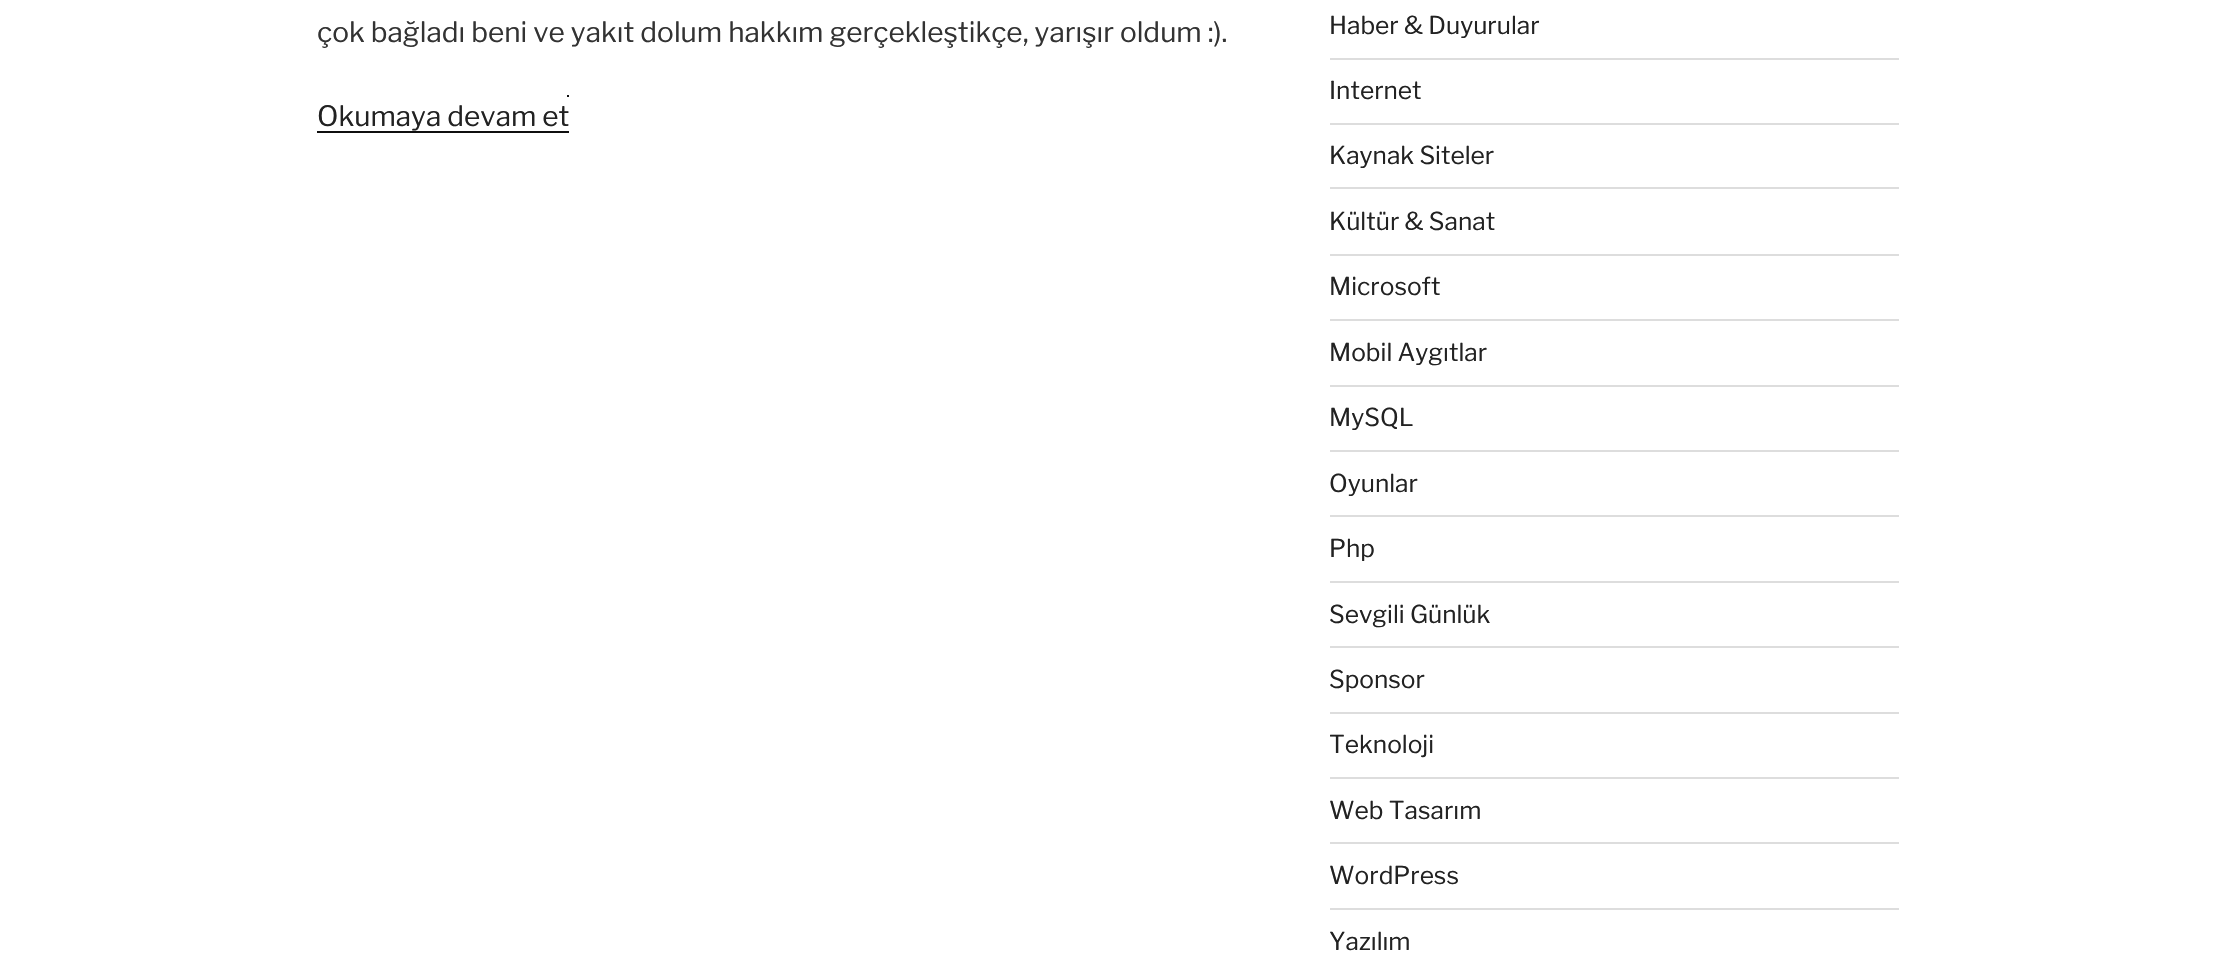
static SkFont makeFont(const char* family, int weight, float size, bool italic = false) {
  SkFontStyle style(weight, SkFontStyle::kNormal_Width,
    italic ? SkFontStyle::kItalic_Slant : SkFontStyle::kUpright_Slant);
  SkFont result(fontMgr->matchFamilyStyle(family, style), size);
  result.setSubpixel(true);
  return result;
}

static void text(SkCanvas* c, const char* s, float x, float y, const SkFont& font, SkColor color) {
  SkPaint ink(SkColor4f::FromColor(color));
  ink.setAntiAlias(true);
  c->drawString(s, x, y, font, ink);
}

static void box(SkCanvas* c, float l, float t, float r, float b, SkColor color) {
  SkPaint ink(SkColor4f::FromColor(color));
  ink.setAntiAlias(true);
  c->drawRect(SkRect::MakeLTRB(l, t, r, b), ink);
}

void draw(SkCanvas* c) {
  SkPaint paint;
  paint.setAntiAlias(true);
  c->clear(0xffffffff);
  SkFont face1 = makeFont("Libre Franklin", 100, 28);
  text(c, "çok bağladı beni ve yakıt dolum hakkım gerçekleştikçe, yarışır oldum :).", 317, 42, face1, 0xff333333);
  text(c, "Okumaya devam et", 317, 126, face1, 0xff222222);
  box(c, 317, 131, 569, 133, 0xff0f0f0f);
  box(c, 567, 95, 569, 97, 0xff0f0f0f);
  box(c, 1330, 58, 1899, 60, 0xffdddddd);
  SkFont face2 = makeFont("Libre Franklin", 100, 24.5f);
  text(c, "Haber & Duyurular", 1329, 34, face2, 0xff222222);
  box(c, 1330, 123, 1899, 125, 0xffdddddd);
  text(c, "Internet", 1329, 99, face2, 0xff222222);
  box(c, 1330, 187, 1899, 189, 0xffdddddd);
  text(c, "Kaynak Siteler", 1329, 164, face2, 0xff222222);
  box(c, 1330, 254, 1899, 256, 0xffdddddd);
  text(c, "Kültür & Sanat", 1329, 230, face2, 0xff222222);
  box(c, 1330, 319, 1899, 321, 0xffdddddd);
  text(c, "Microsoft", 1329, 295, face2, 0xff222222);
  box(c, 1330, 385, 1899, 387, 0xffdddddd);
  text(c, "Mobil Aygıtlar", 1329, 361, face2, 0xff222222);
  box(c, 1330, 450, 1899, 452, 0xffdddddd);
  text(c, "MySQL", 1329, 426, face2, 0xff222222);
  box(c, 1330, 515, 1899, 517, 0xffdddddd);
  text(c, "Oyunlar", 1329, 492, face2, 0xff222222);
  box(c, 1330, 581, 1899, 583, 0xffdddddd);
  text(c, "Php", 1329, 557, face2, 0xff222222);
  box(c, 1330, 646, 1899, 648, 0xffdddddd);
  text(c, "Sevgili Günlük", 1329, 623, face2, 0xff222222);
  box(c, 1330, 712, 1899, 714, 0xffdddddd);
  text(c, "Sponsor", 1329, 688, face2, 0xff222222);
  box(c, 1330, 777, 1899, 779, 0xffdddddd);
  text(c, "Teknoloji", 1329, 753, face2, 0xff222222);
  box(c, 1330, 842, 1899, 844, 0xffdddddd);
  text(c, "Web Tasarım", 1329, 819, face2, 0xff222222);
  box(c, 1330, 908, 1899, 910, 0xffdddddd);
  text(c, "WordPress", 1329, 884, face2, 0xff222222);
  text(c, "Yazılım", 1329, 950, face2, 0xff222222);
}
